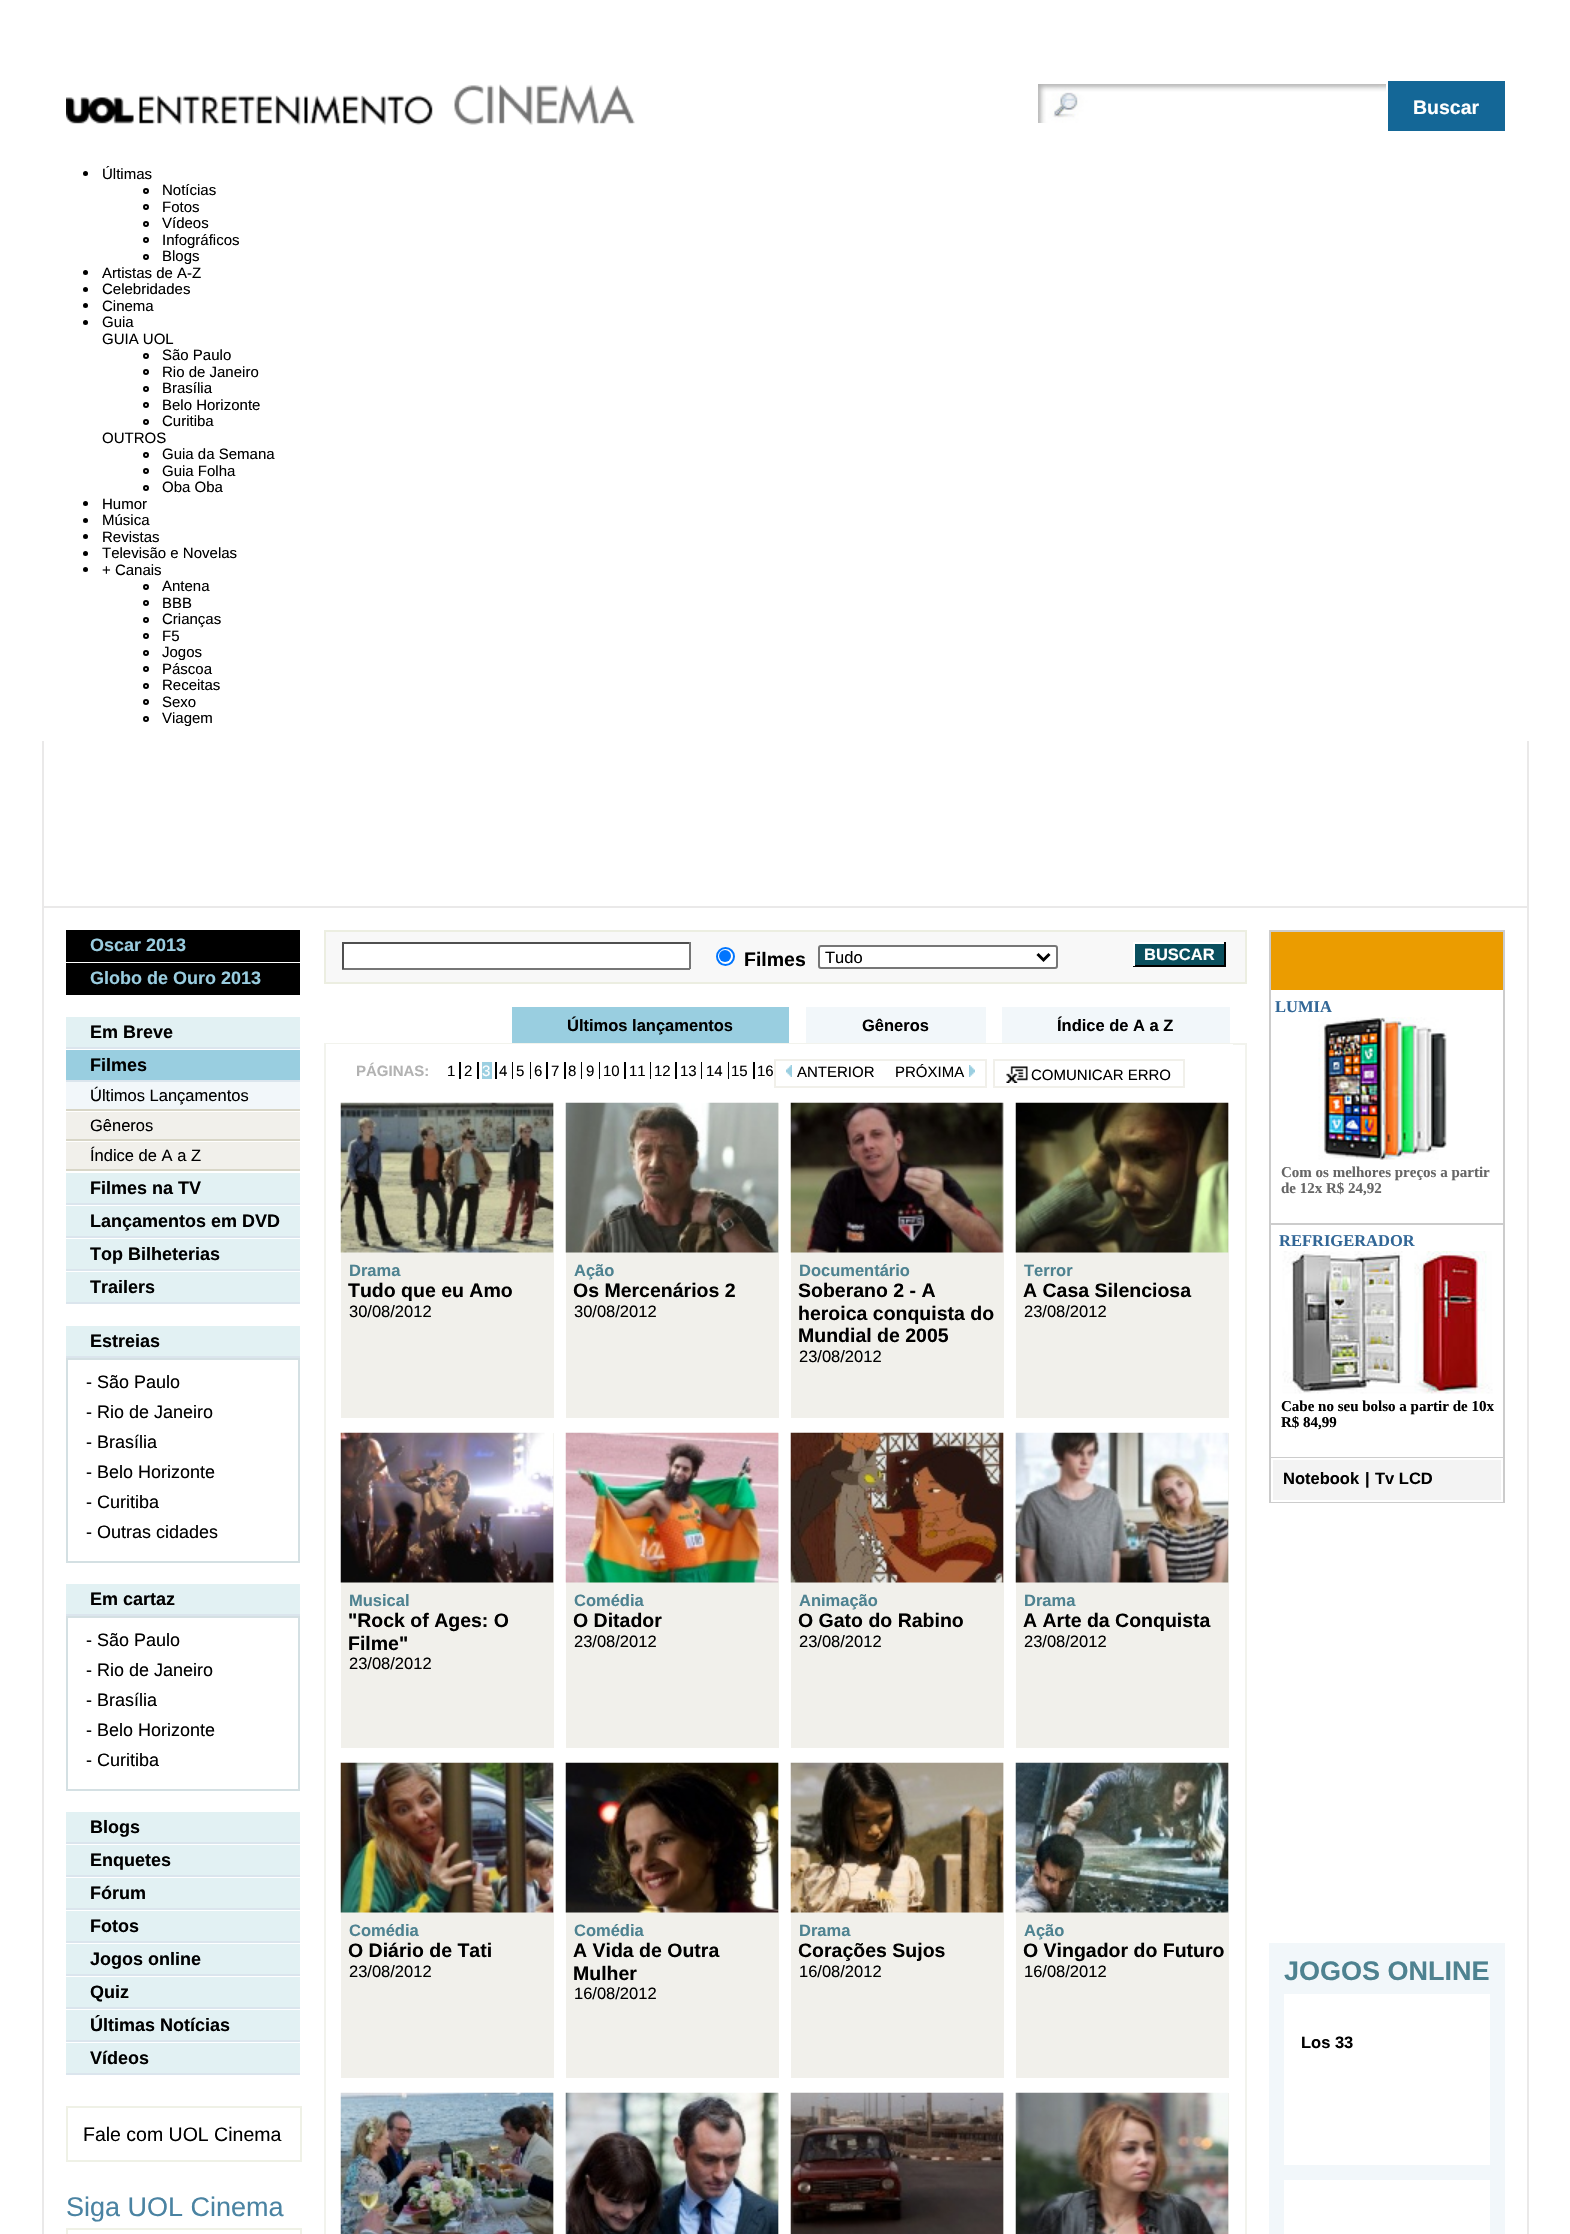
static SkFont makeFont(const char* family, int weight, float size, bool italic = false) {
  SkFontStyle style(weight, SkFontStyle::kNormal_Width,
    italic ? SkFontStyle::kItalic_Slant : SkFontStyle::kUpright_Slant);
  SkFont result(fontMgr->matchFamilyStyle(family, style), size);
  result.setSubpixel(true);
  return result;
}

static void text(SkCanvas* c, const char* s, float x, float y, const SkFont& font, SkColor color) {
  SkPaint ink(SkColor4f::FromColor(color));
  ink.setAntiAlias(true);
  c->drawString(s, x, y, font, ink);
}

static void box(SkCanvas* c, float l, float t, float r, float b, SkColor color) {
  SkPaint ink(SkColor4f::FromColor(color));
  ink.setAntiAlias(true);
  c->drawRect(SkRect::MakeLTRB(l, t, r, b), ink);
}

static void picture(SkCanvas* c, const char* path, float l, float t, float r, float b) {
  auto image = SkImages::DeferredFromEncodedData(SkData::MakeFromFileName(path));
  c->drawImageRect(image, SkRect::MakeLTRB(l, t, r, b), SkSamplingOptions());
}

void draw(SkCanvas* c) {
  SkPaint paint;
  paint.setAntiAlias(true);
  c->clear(0xffffffff);
  picture(c, "img_01.png", 66, 95, 433, 125);
  picture(c, "img_02.png", 454, 84, 635, 125);
  picture(c, "img_03.png", 1038, 84, 1386, 123);
  box(c, 1388, 81, 1505, 131, 0xff146797);
  SkFont face1 = makeFont("Liberation Sans", 700, 19.5f);
  text(c, "Buscar", 1413, 114, face1, 0xffffffff);
  paint.setColor(0xff000000);
  c->drawCircle(85.5f, 173.5f, 2.5f, paint);
  SkFont face2 = makeFont("Liberation Sans", 400, 15);
  text(c, "Últimas", 102, 179, face2, 0xff000000);
  paint.setStyle(SkPaint::kStroke_Style);
  paint.setStrokeWidth(2);
  c->drawCircle(146, 191, 2, paint);
  text(c, "Notícias", 162, 195, face2, 0xff000000);
  c->drawCircle(146, 207, 2, paint);
  text(c, "Fotos", 162, 212, face2, 0xff000000);
  c->drawCircle(146, 224, 2, paint);
  text(c, "Vídeos", 162, 228, face2, 0xff000000);
  c->drawCircle(146, 240, 2, paint);
  text(c, "Infográficos", 162, 245, face2, 0xff000000);
  c->drawCircle(146, 257, 2, paint);
  text(c, "Blogs", 162, 261, face2, 0xff000000);
  paint.setStyle(SkPaint::kFill_Style);
  c->drawCircle(85.5f, 272.5f, 2.5f, paint);
  text(c, "Artistas de A-Z", 102, 278, face2, 0xff000000);
  c->drawCircle(85.5f, 289.5f, 2.5f, paint);
  text(c, "Celebridades", 102, 294, face2, 0xff000000);
  c->drawCircle(85.5f, 305.5f, 2.5f, paint);
  text(c, "Cinema", 102, 311, face2, 0xff000000);
  c->drawCircle(85.5f, 322.5f, 2.5f, paint);
  text(c, "Guia", 102, 327, face2, 0xff000000);
  text(c, "GUIA UOL", 102, 344, face2, 0xff000000);
  paint.setStyle(SkPaint::kStroke_Style);
  c->drawCircle(146, 356, 2, paint);
  text(c, "São Paulo", 162, 360, face2, 0xff000000);
  c->drawCircle(146, 372, 2, paint);
  text(c, "Rio de Janeiro", 162, 377, face2, 0xff000000);
  c->drawCircle(146, 389, 2, paint);
  text(c, "Brasília", 162, 393, face2, 0xff000000);
  c->drawCircle(146, 405, 2, paint);
  text(c, "Belo Horizonte", 162, 410, face2, 0xff000000);
  c->drawCircle(146, 422, 2, paint);
  text(c, "Curitiba", 162, 426, face2, 0xff000000);
  text(c, "OUTROS", 102, 443, face2, 0xff000000);
  c->drawCircle(146, 455, 2, paint);
  text(c, "Guia da Semana", 162, 459, face2, 0xff000000);
  c->drawCircle(146, 471, 2, paint);
  text(c, "Guia Folha", 162, 476, face2, 0xff000000);
  c->drawCircle(146, 488, 2, paint);
  text(c, "Oba Oba", 162, 492, face2, 0xff000000);
  paint.setStyle(SkPaint::kFill_Style);
  c->drawCircle(85.5f, 503.5f, 2.5f, paint);
  text(c, "Humor", 102, 509, face2, 0xff000000);
  c->drawCircle(85.5f, 520.5f, 2.5f, paint);
  text(c, "Música", 102, 525, face2, 0xff000000);
  c->drawCircle(85.5f, 536.5f, 2.5f, paint);
  text(c, "Revistas", 102, 542, face2, 0xff000000);
  c->drawCircle(85.5f, 553.5f, 2.5f, paint);
  text(c, "Televisão e Novelas", 102, 558, face2, 0xff000000);
  c->drawCircle(85.5f, 569.5f, 2.5f, paint);
  text(c, "+ Canais", 102, 575, face2, 0xff000000);
  paint.setStyle(SkPaint::kStroke_Style);
  c->drawCircle(146, 587, 2, paint);
  text(c, "Antena", 162, 591, face2, 0xff000000);
  c->drawCircle(146, 603, 2, paint);
  text(c, "BBB", 162, 608, face2, 0xff000000);
  c->drawCircle(146, 620, 2, paint);
  text(c, "Crianças", 162, 624, face2, 0xff000000);
  c->drawCircle(146, 636, 2, paint);
  text(c, "F5", 162, 641, face2, 0xff000000);
  c->drawCircle(146, 653, 2, paint);
  text(c, "Jogos", 162, 657, face2, 0xff000000);
  c->drawCircle(146, 669, 2, paint);
  text(c, "Páscoa", 162, 674, face2, 0xff000000);
  c->drawCircle(146, 686, 2, paint);
  text(c, "Receitas", 162, 690, face2, 0xff000000);
  c->drawCircle(146, 702, 2, paint);
  text(c, "Sexo", 162, 707, face2, 0xff000000);
  c->drawCircle(146, 719, 2, paint);
  text(c, "Viagem", 162, 723, face2, 0xff000000);
  box(c, 1527, 741, 1529, 906, 0xffeae9e9);
  box(c, 42, 741, 44, 906, 0xffeae9e9);
  paint.setColor(0xffeae9e9);
  c->drawRect(SkRect::MakeLTRB(43, 907, 1528, 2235), paint);
  box(c, 66, 930, 300, 962, 0xff000000);
  SkFont face3 = makeFont("Liberation Sans", 700, 18);
  text(c, "Oscar 2013", 90, 951, face3, 0xff99ccdf);
  box(c, 66, 963, 300, 995, 0xff000000);
  text(c, "Globo de Ouro 2013", 90, 984, face3, 0xff99ccdf);
  box(c, 66, 1017, 300, 1047, 0xffe2f1f3);
  box(c, 66, 1047, 300, 1049, 0xffdbe5ed);
  text(c, "Em Breve", 90, 1038, face3, 0xff000000);
  box(c, 66, 1050, 300, 1080, 0xff99cee0);
  box(c, 66, 1080, 300, 1082, 0xffdbe5ed);
  text(c, "Filmes", 90, 1071, face3, 0xff000000);
  box(c, 66, 1082, 300, 1109, 0xfff2f7fa);
  box(c, 66, 1109, 300, 1111, 0xffd8d6c7);
  SkFont face4 = makeFont("Liberation Sans", 400, 16.5f);
  text(c, "Últimos Lançamentos", 90, 1101, face4, 0xff000000);
  box(c, 66, 1112, 300, 1139, 0xfff1f0eb);
  box(c, 66, 1139, 300, 1141, 0xffd8d6c7);
  text(c, "Gêneros", 90, 1131, face4, 0xff000000);
  box(c, 66, 1142, 300, 1169, 0xfff1f0eb);
  box(c, 66, 1169, 300, 1171, 0xffd8d6c7);
  text(c, "Índice de A a Z", 90, 1161, face4, 0xff000000);
  box(c, 66, 1173, 300, 1203, 0xffe2f1f3);
  box(c, 66, 1203, 300, 1205, 0xffdbe5ed);
  text(c, "Filmes na TV", 90, 1194, face3, 0xff000000);
  box(c, 66, 1206, 300, 1236, 0xffe2f1f3);
  box(c, 66, 1236, 300, 1238, 0xffdbe5ed);
  text(c, "Lançamentos em DVD", 90, 1227, face3, 0xff000000);
  box(c, 66, 1239, 300, 1269, 0xffe2f1f3);
  box(c, 66, 1269, 300, 1271, 0xffdbe5ed);
  text(c, "Top Bilheterias", 90, 1260, face3, 0xff000000);
  box(c, 66, 1272, 300, 1302, 0xffe2f1f3);
  box(c, 66, 1302, 300, 1304, 0xffdbe5ed);
  text(c, "Trailers", 90, 1293, face3, 0xff000000);
  box(c, 66, 1326, 300, 1356, 0xffe2f1f3);
  box(c, 66, 1356, 300, 1358, 0xffdbe5ed);
  text(c, "Estreias", 90, 1347, face3, 0xff000000);
  paint.setColor(0xffd4e0e3);
  c->drawRect(SkRect::MakeLTRB(67, 1359, 299, 1562), paint);
  SkFont face5 = makeFont("Liberation Sans", 400, 18);
  text(c, "- São Paulo", 86, 1388, face5, 0xff000000);
  text(c, "- Rio de Janeiro", 86, 1418, face5, 0xff000000);
  text(c, "- Brasília", 86, 1448, face5, 0xff000000);
  text(c, "- Belo Horizonte", 86, 1478, face5, 0xff000000);
  text(c, "- Curitiba", 86, 1508, face5, 0xff000000);
  text(c, "- Outras cidades", 86, 1538, face5, 0xff000000);
  box(c, 66, 1584, 300, 1614, 0xffe2f1f3);
  box(c, 66, 1614, 300, 1616, 0xffdbe5ed);
  text(c, "Em cartaz", 90, 1605, face3, 0xff000000);
  c->drawRect(SkRect::MakeLTRB(67, 1617, 299, 1790), paint);
  text(c, "- São Paulo", 86, 1646, face5, 0xff000000);
  text(c, "- Rio de Janeiro", 86, 1676, face5, 0xff000000);
  text(c, "- Brasília", 86, 1706, face5, 0xff000000);
  text(c, "- Belo Horizonte", 86, 1736, face5, 0xff000000);
  text(c, "- Curitiba", 86, 1766, face5, 0xff000000);
  box(c, 66, 1812, 300, 1842, 0xffe2f1f3);
  box(c, 66, 1842, 300, 1844, 0xffdbe5ed);
  text(c, "Blogs", 90, 1833, face3, 0xff000000);
  box(c, 66, 1845, 300, 1875, 0xffe2f1f3);
  box(c, 66, 1875, 300, 1877, 0xffdbe5ed);
  text(c, "Enquetes", 90, 1866, face3, 0xff000000);
  box(c, 66, 1878, 300, 1908, 0xffe2f1f3);
  box(c, 66, 1908, 300, 1910, 0xffdbe5ed);
  text(c, "Fórum", 90, 1899, face3, 0xff000000);
  box(c, 66, 1911, 300, 1941, 0xffe2f1f3);
  box(c, 66, 1941, 300, 1943, 0xffdbe5ed);
  text(c, "Fotos", 90, 1932, face3, 0xff000000);
  box(c, 66, 1944, 300, 1974, 0xffe2f1f3);
  box(c, 66, 1974, 300, 1976, 0xffdbe5ed);
  text(c, "Jogos online", 90, 1965, face3, 0xff000000);
  box(c, 66, 1977, 300, 2007, 0xffe2f1f3);
  box(c, 66, 2007, 300, 2009, 0xffdbe5ed);
  text(c, "Quiz", 90, 1998, face3, 0xff000000);
  box(c, 66, 2010, 300, 2040, 0xffe2f1f3);
  box(c, 66, 2040, 300, 2042, 0xffdbe5ed);
  text(c, "Últimas Notícias", 90, 2031, face3, 0xff000000);
  box(c, 66, 2043, 300, 2073, 0xffe2f1f3);
  box(c, 66, 2073, 300, 2075, 0xffdbe5ed);
  text(c, "Vídeos", 90, 2064, face3, 0xff000000);
  paint.setColor(0xffeff1e6);
  c->drawRect(SkRect::MakeLTRB(67, 2107, 301, 2161), paint);
  SkFont face6 = makeFont("Liberation Sans", 400, 19.5f);
  text(c, "Fale com UOL Cinema", 83, 2141, face6, 0xff000000);
  SkFont face7 = makeFont("Liberation Sans", 400, 27);
  text(c, "Siga UOL Cinema", 66, 2216, face7, 0xff4a83a2);
  c->drawRect(SkRect::MakeLTRB(67, 2229, 301, 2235), paint);
  paint.setStyle(SkPaint::kFill_Style);
  paint.setColor(0xfff8f8f8);
  c->drawRect(SkRect::MakeLTRB(325, 931, 1246, 983), paint);
  paint.setStyle(SkPaint::kStroke_Style);
  paint.setColor(0xffeceee1);
  c->drawRect(SkRect::MakeLTRB(325, 931, 1246, 983), paint);
  box(c, 344, 944, 689, 968, 0xffffffff);
  box(c, 342, 942, 690, 944, 0xff4f4f4f);
  box(c, 689, 942, 691, 969, 0xff767676);
  box(c, 342, 968, 690, 970, 0xff767676);
  box(c, 342, 942, 344, 969, 0xff4f4f4f);
  paint.setStyle(SkPaint::kFill_Style);
  paint.setColor(0xffffffff);
  c->drawCircle(725.5f, 956.5f, 8.5f, paint);
  paint.setStyle(SkPaint::kStroke_Style);
  paint.setColor(0xff0075ff);
  c->drawCircle(725.5f, 956.5f, 8.5f, paint);
  paint.setStyle(SkPaint::kFill_Style);
  c->drawCircle(725, 956, 6, paint);
  text(c, "Filmes", 744, 966, face1, 0xff000000);
  paint.setColor(0xffffffff);
  c->drawRoundRect(SkRect::MakeLTRB(819, 946, 1057, 968), 2, 2, paint);
  paint.setStyle(SkPaint::kStroke_Style);
  paint.setColor(0xff767676);
  c->drawRoundRect(SkRect::MakeLTRB(819, 946, 1057, 968), 2, 2, paint);
  paint.setStrokeWidth(3);
  paint.setColor(0xff000000);
  c->drawPath(SkPathBuilder().moveTo(1037.5f, 954).lineTo(1043.5f, 960).lineTo(1049.5f, 954).detach(), paint);
  text(c, "Tudo", 825, 963, face4, 0xff000000);
  box(c, 1135, 944, 1224, 965, 0xff0a4f5e);
  box(c, 1133, 942, 1226, 944, 0xffffffff);
  box(c, 1224, 942, 1226, 966, 0xff000000);
  box(c, 1133, 965, 1226, 967, 0xff000000);
  box(c, 1133, 942, 1135, 966, 0xffffffff);
  SkFont face8 = makeFont("Liberation Sans", 700, 16.5f);
  text(c, "BUSCAR", 1144, 960, face8, 0xffffffff);
  box(c, 512, 1007, 789, 1043, 0xff99cee0);
  text(c, "Últimos lançamentos", 567, 1031, face8, 0xff000000);
  box(c, 806, 1007, 986, 1043, 0xfff2f7fa);
  text(c, "Gêneros", 862, 1031, face8, 0xff000000);
  box(c, 1002, 1007, 1230, 1043, 0xfff2f7fa);
  text(c, "Índice de A a Z", 1057, 1031, face8, 0xff000000);
  paint.setStrokeWidth(2);
  paint.setColor(0xfff2f3ed);
  c->drawRect(SkRect::MakeLTRB(325, 1044, 1246, 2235), paint);
  box(c, 326, 1044, 1233, 1045, 0xffffffff);
  SkFont face9 = makeFont("Liberation Sans", 700, 15);
  text(c, "PÁGINAS:", 356, 1076, face9, 0xffb2b2b2);
  box(c, 459, 1062, 461, 1079, 0xff000000);
  text(c, "1", 447, 1076, face2, 0xff000000);
  box(c, 477, 1062, 479, 1079, 0xff000000);
  text(c, "2", 464, 1076, face2, 0xff000000);
  box(c, 495, 1062, 497, 1079, 0xff000000);
  box(c, 482, 1062, 492, 1079, 0xff9bcfe1);
  text(c, "3", 482, 1076, face2, 0xffffffff);
  box(c, 512, 1062, 513, 1079, 0xff000000);
  text(c, "4", 499, 1076, face2, 0xff000000);
  box(c, 530, 1062, 531, 1079, 0xff000000);
  text(c, "5", 516, 1076, face2, 0xff000000);
  box(c, 546, 1062, 548, 1079, 0xff000000);
  text(c, "6", 534, 1076, face2, 0xff000000);
  box(c, 564, 1062, 566, 1079, 0xff000000);
  text(c, "7", 551, 1076, face2, 0xff000000);
  box(c, 581, 1062, 582, 1079, 0xff000000);
  text(c, "8", 568, 1076, face2, 0xff000000);
  box(c, 599, 1062, 600, 1079, 0xff000000);
  text(c, "9", 586, 1076, face2, 0xff000000);
  box(c, 624, 1062, 626, 1079, 0xff000000);
  text(c, "10", 603, 1076, face2, 0xff000000);
  box(c, 650, 1062, 651, 1079, 0xff000000);
  text(c, "11", 629, 1076, face2, 0xff000000);
  box(c, 675, 1062, 677, 1079, 0xff000000);
  text(c, "12", 654, 1076, face2, 0xff000000);
  box(c, 701, 1062, 702, 1079, 0xff000000);
  text(c, "13", 680, 1076, face2, 0xff000000);
  box(c, 728, 1062, 729, 1079, 0xff000000);
  text(c, "14", 706, 1076, face2, 0xff000000);
  box(c, 753, 1062, 755, 1079, 0xff000000);
  text(c, "15", 731, 1076, face2, 0xff000000);
  text(c, "16", 757, 1076, face2, 0xff000000);
  paint.setColor(0xfff1f0ea);
  c->drawRect(SkRect::MakeLTRB(775, 1060, 986, 1087), paint);
  box(c, 786, 1065, 792, 1077, 0xff9bcfe1);
  picture(c, "img_04.png", 786, 1065, 791, 1077);
  text(c, "ANTERIOR", 797, 1077, face2, 0xff000000);
  text(c, "PRÓXIMA", 895, 1077, face2, 0xff000000);
  box(c, 969, 1065, 975, 1077, 0xff9bcfe1);
  picture(c, "img_05.png", 970, 1065, 975, 1077);
  c->drawRect(SkRect::MakeLTRB(994, 1060, 1184, 1087), paint);
  picture(c, "img_06.png", 1006, 1066, 1028, 1083);
  text(c, "COMUNICAR ERRO", 1031, 1080, face2, 0xff000000);
  box(c, 341, 1103, 554, 1418, 0xfff1f0eb);
  picture(c, "img_07.png", 340, 1102, 554, 1253);
  text(c, "Drama", 349, 1276, face8, 0xff4e8290);
  text(c, "Tudo que eu Amo", 348, 1297, face1, 0xff000000);
  text(c, "30/08/2012", 349, 1317, face4, 0xff000000);
  box(c, 566, 1103, 779, 1418, 0xfff1f0eb);
  picture(c, "img_08.png", 565, 1102, 779, 1253);
  text(c, "Ação", 574, 1276, face8, 0xff4e8290);
  text(c, "Os Mercenários 2", 573, 1297, face1, 0xff000000);
  text(c, "30/08/2012", 574, 1317, face4, 0xff000000);
  box(c, 791, 1103, 1004, 1418, 0xfff1f0eb);
  picture(c, "img_09.png", 790, 1102, 1004, 1253);
  text(c, "Documentário", 799, 1276, face8, 0xff4e8290);
  text(c, "Soberano 2 - A", 798, 1297, face1, 0xff000000);
  text(c, "heroica conquista do", 798, 1320, face1, 0xff000000);
  text(c, "Mundial de 2005", 798, 1342, face1, 0xff000000);
  text(c, "23/08/2012", 799, 1362, face4, 0xff000000);
  box(c, 1016, 1103, 1229, 1418, 0xfff1f0eb);
  picture(c, "img_10.png", 1015, 1102, 1229, 1253);
  text(c, "Terror", 1024, 1276, face8, 0xff4e8290);
  text(c, "A Casa Silenciosa", 1023, 1297, face1, 0xff000000);
  text(c, "23/08/2012", 1024, 1317, face4, 0xff000000);
  box(c, 341, 1433, 554, 1748, 0xfff1f0eb);
  picture(c, "img_11.png", 340, 1432, 554, 1583);
  text(c, "Musical", 349, 1606, face8, 0xff4e8290);
  text(c, "\"Rock of Ages: O", 348, 1627, face1, 0xff000000);
  text(c, "Filme\"", 348, 1650, face1, 0xff000000);
  text(c, "23/08/2012", 349, 1669, face4, 0xff000000);
  box(c, 566, 1433, 779, 1748, 0xfff1f0eb);
  picture(c, "img_12.png", 565, 1432, 779, 1583);
  text(c, "Comédia", 574, 1606, face8, 0xff4e8290);
  text(c, "O Ditador", 573, 1627, face1, 0xff000000);
  text(c, "23/08/2012", 574, 1647, face4, 0xff000000);
  box(c, 791, 1433, 1004, 1748, 0xfff1f0eb);
  picture(c, "img_13.png", 790, 1432, 1004, 1583);
  text(c, "Animação", 799, 1606, face8, 0xff4e8290);
  text(c, "O Gato do Rabino", 798, 1627, face1, 0xff000000);
  text(c, "23/08/2012", 799, 1647, face4, 0xff000000);
  box(c, 1016, 1433, 1229, 1748, 0xfff1f0eb);
  picture(c, "img_14.png", 1015, 1432, 1229, 1583);
  text(c, "Drama", 1024, 1606, face8, 0xff4e8290);
  text(c, "A Arte da Conquista", 1023, 1627, face1, 0xff000000);
  text(c, "23/08/2012", 1024, 1647, face4, 0xff000000);
  box(c, 341, 1763, 554, 2078, 0xfff1f0eb);
  picture(c, "img_15.png", 340, 1762, 554, 1913);
  text(c, "Comédia", 349, 1936, face8, 0xff4e8290);
  text(c, "O Diário de Tati", 348, 1957, face1, 0xff000000);
  text(c, "23/08/2012", 349, 1977, face4, 0xff000000);
  box(c, 566, 1763, 779, 2078, 0xfff1f0eb);
  picture(c, "img_16.png", 565, 1762, 779, 1913);
  text(c, "Comédia", 574, 1936, face8, 0xff4e8290);
  text(c, "A Vida de Outra", 573, 1957, face1, 0xff000000);
  text(c, "Mulher", 573, 1980, face1, 0xff000000);
  text(c, "16/08/2012", 574, 1999, face4, 0xff000000);
  box(c, 791, 1763, 1004, 2078, 0xfff1f0eb);
  picture(c, "img_17.png", 790, 1762, 1004, 1913);
  text(c, "Drama", 799, 1936, face8, 0xff4e8290);
  text(c, "Corações Sujos", 798, 1957, face1, 0xff000000);
  text(c, "16/08/2012", 799, 1977, face4, 0xff000000);
  box(c, 1016, 1763, 1229, 2078, 0xfff1f0eb);
  picture(c, "img_18.png", 1015, 1762, 1229, 1913);
  text(c, "Ação", 1024, 1936, face8, 0xff4e8290);
  text(c, "O Vingador do Futuro", 1023, 1957, face1, 0xff000000);
  text(c, "16/08/2012", 1024, 1977, face4, 0xff000000);
  box(c, 553, 2093, 554, 2234, 0xfff1f0eb);
  picture(c, "img_19.png", 340, 2092, 554, 2234);
  box(c, 778, 2093, 779, 2234, 0xfff1f0eb);
  picture(c, "img_20.png", 565, 2092, 779, 2234);
  box(c, 1003, 2093, 1004, 2234, 0xfff1f0eb);
  picture(c, "img_21.png", 790, 2092, 1004, 2234);
  box(c, 1228, 2093, 1229, 2234, 0xfff1f0eb);
  picture(c, "img_22.png", 1015, 2092, 1229, 2234);
  paint.setColor(0xffcccccc);
  c->drawRect(SkRect::MakeLTRB(1270, 931, 1504, 1502), paint);
  box(c, 1271, 932, 1503, 990, 0xffeb9c00);
  box(c, 1271, 1223, 1503, 1225, 0xffcccccc);
  SkFont face10 = makeFont("Liberation Serif", 700, 16.5f);
  text(c, "LUMIA", 1275, 1012, face10, 0xff326797);
  picture(c, "img_23.png", 1318, 1017, 1447, 1160);
  SkFont face11 = makeFont("Liberation Serif", 700, 15);
  text(c, "Com os melhores preços a partir", 1281, 1177, face11, 0xff666666);
  text(c, "de 12x R$ 24,92", 1281, 1193, face11, 0xff666666);
  box(c, 1271, 1457, 1503, 1458, 0xffcccccc);
  text(c, "REFRIGERADOR", 1279, 1246, face10, 0xff326797);
  picture(c, "img_24.png", 1282, 1251, 1493, 1394);
  text(c, "Cabe no seu bolso a partir de 10x", 1281, 1411, face11, 0xff000000);
  text(c, "R$ 84,99", 1281, 1427, face11, 0xff000000);
  paint.setStyle(SkPaint::kFill_Style);
  paint.setColor(0xfff3f3f3);
  c->drawRect(SkRect::MakeLTRB(1272, 1459, 1502, 1501), paint);
  paint.setStyle(SkPaint::kStroke_Style);
  paint.setColor(0xffffffff);
  c->drawRect(SkRect::MakeLTRB(1272, 1459, 1502, 1501), paint);
  text(c, "Notebook", 1283, 1484, face8, 0xff000000);
  text(c, "|", 1365, 1484, face8, 0xff000000);
  text(c, "Tv LCD", 1375, 1484, face8, 0xff000000);
  box(c, 1269, 1943, 1505, 2234, 0xfff2f7fa);
  SkFont face12 = makeFont("Liberation Sans", 700, 27);
  text(c, "JOGOS ONLINE", 1284, 1980, face12, 0xff4e8290);
  box(c, 1284, 1994, 1490, 2165, 0xffffffff);
  text(c, "Los 33", 1301, 2048, face8, 0xff000000);
  box(c, 1284, 2180, 1490, 2234, 0xffffffff);
}
